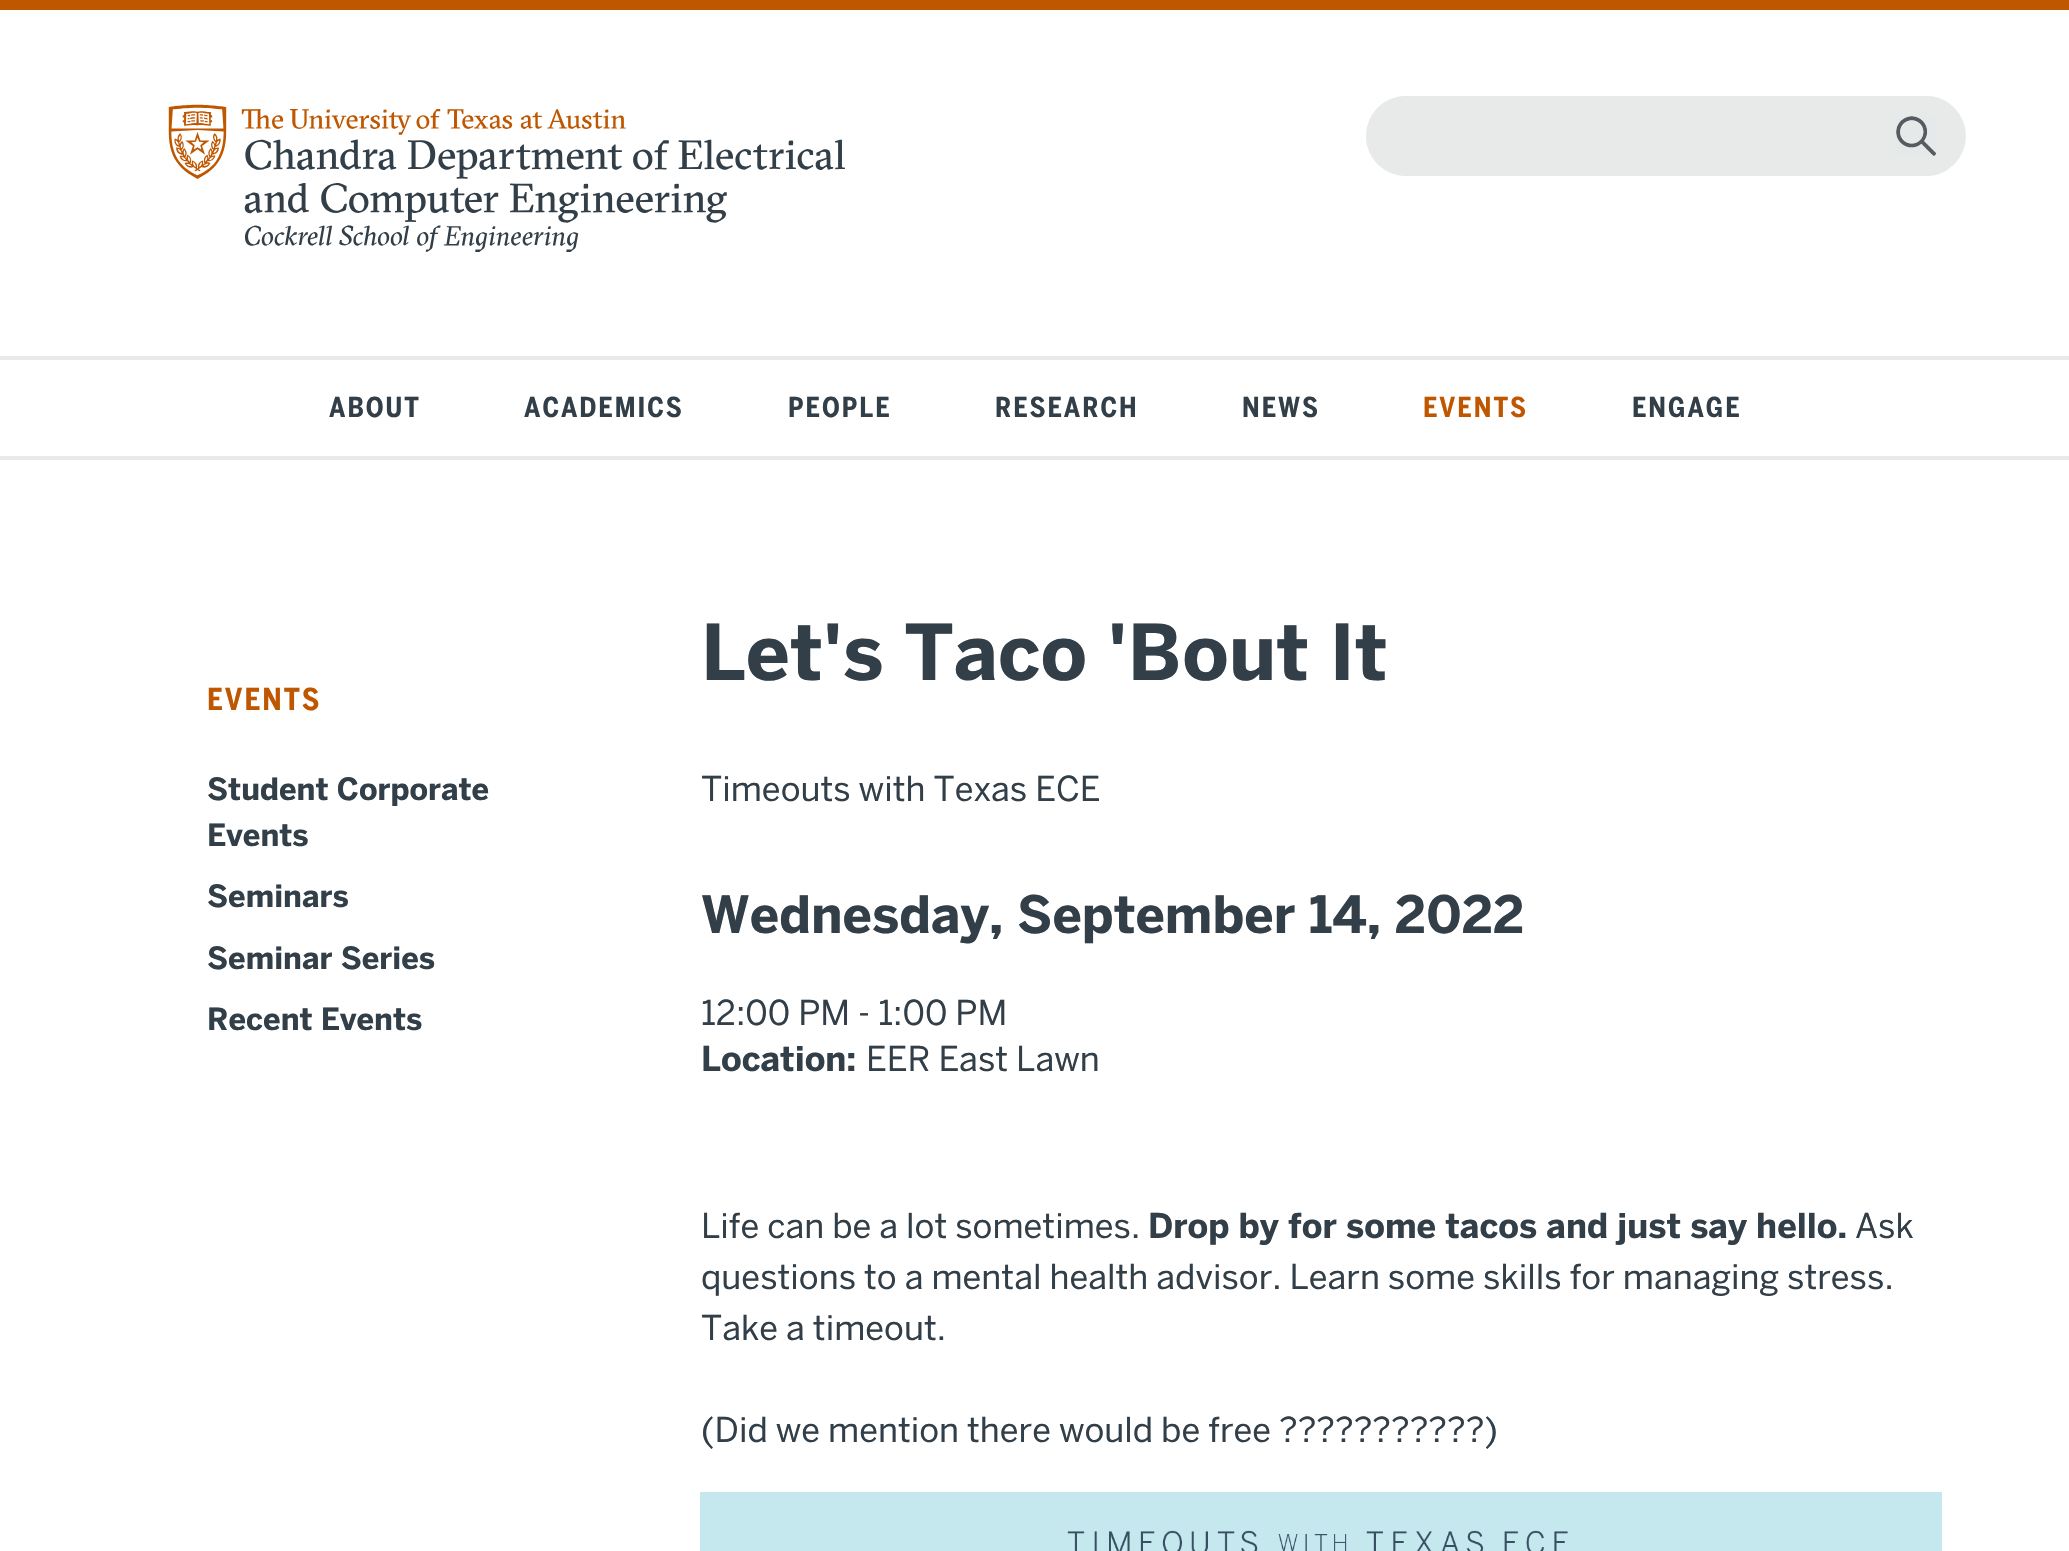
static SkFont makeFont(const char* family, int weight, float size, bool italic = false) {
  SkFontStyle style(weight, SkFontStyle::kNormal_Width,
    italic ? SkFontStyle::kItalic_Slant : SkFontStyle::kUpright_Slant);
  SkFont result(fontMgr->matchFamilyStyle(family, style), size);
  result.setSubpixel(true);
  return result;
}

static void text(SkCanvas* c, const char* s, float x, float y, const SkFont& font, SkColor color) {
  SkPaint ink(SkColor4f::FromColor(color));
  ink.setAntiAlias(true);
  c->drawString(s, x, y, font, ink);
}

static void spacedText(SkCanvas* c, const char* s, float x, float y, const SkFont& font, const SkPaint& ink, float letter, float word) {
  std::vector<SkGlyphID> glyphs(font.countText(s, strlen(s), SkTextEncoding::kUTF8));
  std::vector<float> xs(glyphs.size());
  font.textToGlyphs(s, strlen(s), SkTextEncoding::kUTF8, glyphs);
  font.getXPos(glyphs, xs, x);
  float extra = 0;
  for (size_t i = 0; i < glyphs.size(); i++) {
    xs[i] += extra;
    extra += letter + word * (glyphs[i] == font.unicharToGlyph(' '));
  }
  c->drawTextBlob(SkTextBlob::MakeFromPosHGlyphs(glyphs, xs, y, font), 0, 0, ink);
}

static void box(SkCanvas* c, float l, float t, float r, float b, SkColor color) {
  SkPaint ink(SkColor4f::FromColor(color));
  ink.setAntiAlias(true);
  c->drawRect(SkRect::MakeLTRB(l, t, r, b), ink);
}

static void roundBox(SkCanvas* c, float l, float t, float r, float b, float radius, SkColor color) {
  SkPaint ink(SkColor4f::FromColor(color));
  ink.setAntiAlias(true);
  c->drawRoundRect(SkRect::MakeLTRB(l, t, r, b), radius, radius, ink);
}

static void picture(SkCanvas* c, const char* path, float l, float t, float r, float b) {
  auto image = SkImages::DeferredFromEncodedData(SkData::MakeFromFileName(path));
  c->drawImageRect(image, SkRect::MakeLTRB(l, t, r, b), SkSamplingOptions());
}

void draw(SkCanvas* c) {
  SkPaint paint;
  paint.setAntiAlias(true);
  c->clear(0xffffffff);
  box(c, 0, 0, 2069, 10, 0xffbf5700);
  picture(c, "img_01.png", 168, 104, 845, 252);
  roundBox(c, 1366, 96, 1966, 176, 40, 0xffe8e9e9);
  c->save();
  c->clipPath(SkPathBuilder().moveTo(1406, 96).lineTo(1926, 96).cubicTo(1948, 96, 1966, 114, 1966, 136).cubicTo(1966, 158, 1948, 176, 1926, 176).lineTo(1406, 176).cubicTo(1384, 176, 1366, 158, 1366, 136).cubicTo(1366, 114, 1384, 96, 1406, 96).close().detach(), true);
  paint.setColor(0xffe8e9e9);
  c->drawPath(SkPathBuilder().moveTo(1406, 96).lineTo(1948, 96).lineTo(1948, 176).lineTo(1406, 176).cubicTo(1384, 176, 1366, 158, 1366, 136).cubicTo(1366, 114, 1384, 96, 1406, 96).close().detach(), paint);
  c->restore();
  picture(c, "img_02.png", 1896, 116, 1936, 156);
  box(c, 0, 356, 2069, 360, 0xffe8e9e9);
  box(c, 0, 456, 2069, 460, 0xffe8e9e9);
  SkFont face1 = makeFont("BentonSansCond", 700, 27.25f);
  paint.setColor(0xff333f48);
  spacedText(c, "ABOUT", 329, 417, face1, paint, 2, 0);
  spacedText(c, "ACADEMICS", 524, 417, face1, paint, 2, 0);
  spacedText(c, "PEOPLE", 788, 417, face1, paint, 2, 0);
  spacedText(c, "RESEARCH", 995, 417, face1, paint, 2, 0);
  spacedText(c, "NEWS", 1242, 417, face1, paint, 2, 0);
  paint.setColor(0xffbf5700);
  spacedText(c, "EVENTS", 1423, 417, face1, paint, 2, 0);
  paint.setColor(0xff333f48);
  spacedText(c, "ENGAGE", 1632, 417, face1, paint, 2, 0);
  SkFont face2 = makeFont("BentonSansCond", 700, 30);
  paint.setColor(0xffbf5700);
  spacedText(c, "EVENTS", 207, 710, face2, paint, 2, 0);
  SkFont face3 = makeFont("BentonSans", 700, 30.5f);
  text(c, "Student Corporate", 207, 800, face3, 0xff333f48);
  text(c, "Events", 207, 846, face3, 0xff333f48);
  text(c, "Seminars", 207, 907, face3, 0xff333f48);
  text(c, "Seminar Series", 207, 969, face3, 0xff333f48);
  text(c, "Recent Events", 207, 1030, face3, 0xff333f48);
  SkFont face4 = makeFont("BentonSans", 700, 76.5f);
  text(c, "Let's Taco 'Bout It", 701, 680, face4, 0xff333f48);
  SkFont face5 = makeFont("BentonSans", 400, 34);
  text(c, "Timeouts with Texas ECE", 701, 801, face5, 0xff333f48);
  SkFont face6 = makeFont("BentonSans", 700, 51);
  text(c, "Wednesday, September 14, 2022", 701, 933, face6, 0xff333f48);
  text(c, "12:00 PM - 1:00 PM", 701, 1025, face5, 0xff333f48);
  SkFont face7 = makeFont("BentonSans", 700, 34);
  text(c, "Location:", 701, 1071, face7, 0xff333f48);
  text(c, "EER East Lawn", 866, 1071, face5, 0xff333f48);
  text(c, "Life can be a lot sometimes.", 701, 1238, face5, 0xff333f48);
  text(c, "Drop by for some tacos and just say hello.", 1148, 1238, face7, 0xff333f48);
  text(c, "Ask", 1855, 1238, face5, 0xff333f48);
  text(c, "questions to a mental health advisor. Learn some skills for managing stress.", 701, 1289, face5, 0xff333f48);
  text(c, "Take a timeout.", 701, 1340, face5, 0xff333f48);
  text(c, "(Did we mention there would be free ?\077?\077?\077?\077?\077?)", 701, 1442, face5, 0xff333f48);
  picture(c, "img_03.png", 700, 1492, 1942, 1551);
}
